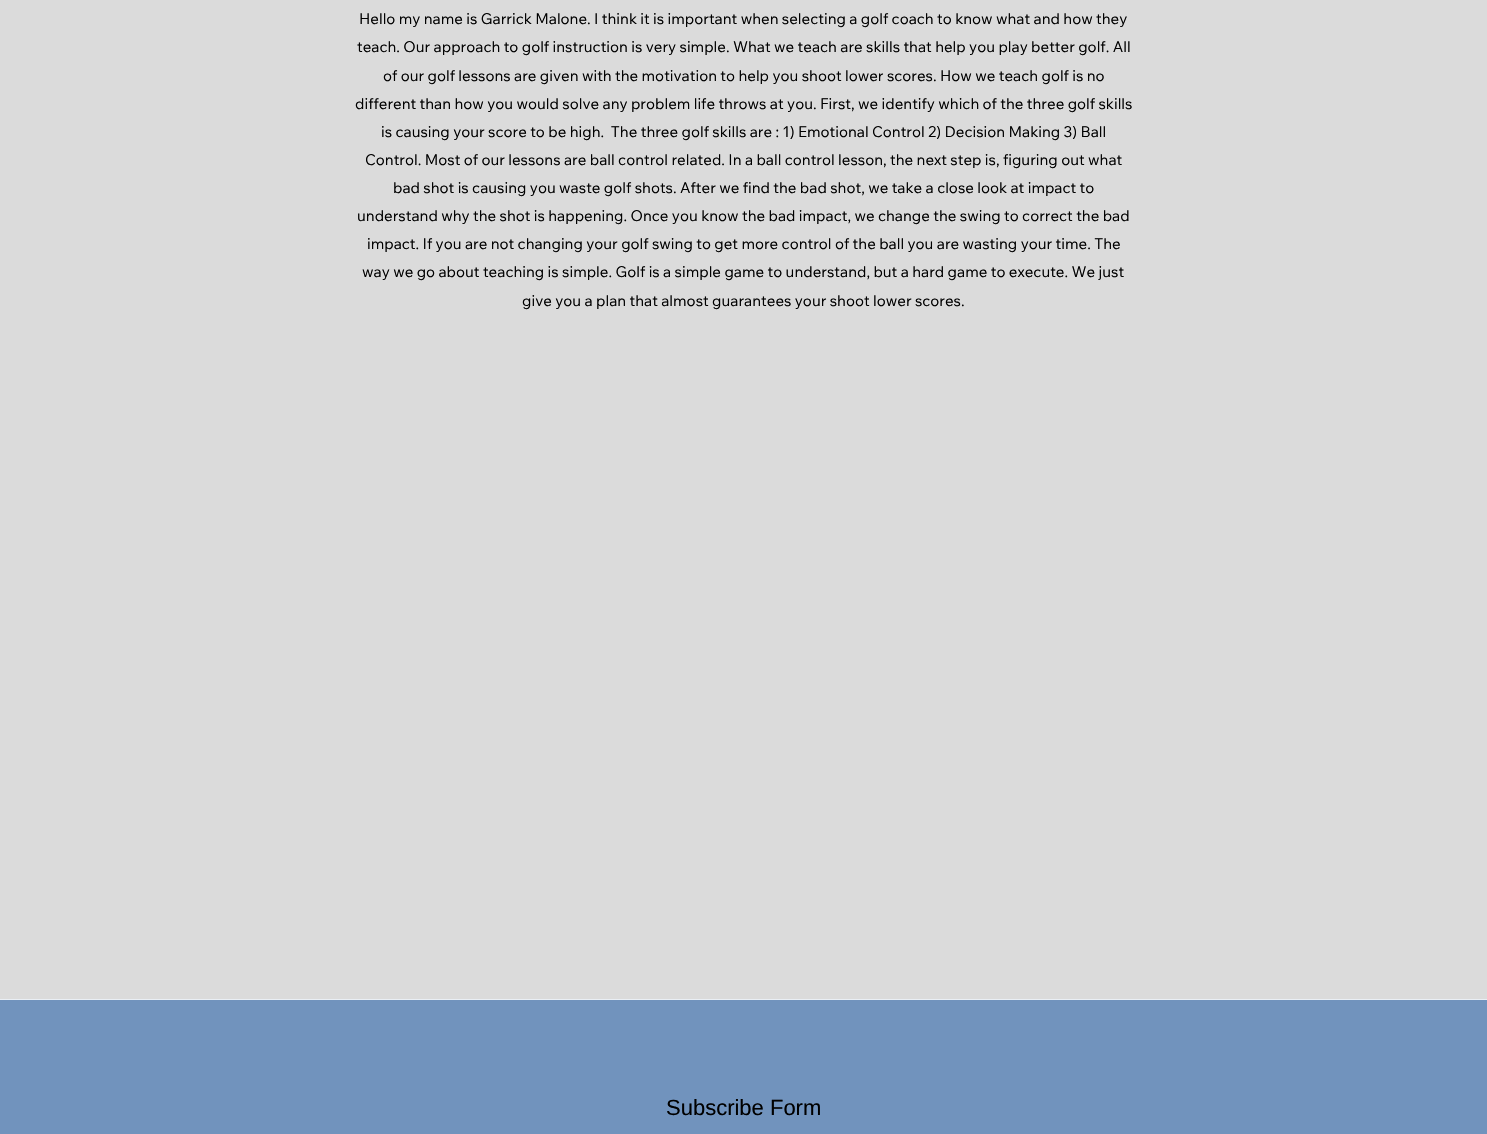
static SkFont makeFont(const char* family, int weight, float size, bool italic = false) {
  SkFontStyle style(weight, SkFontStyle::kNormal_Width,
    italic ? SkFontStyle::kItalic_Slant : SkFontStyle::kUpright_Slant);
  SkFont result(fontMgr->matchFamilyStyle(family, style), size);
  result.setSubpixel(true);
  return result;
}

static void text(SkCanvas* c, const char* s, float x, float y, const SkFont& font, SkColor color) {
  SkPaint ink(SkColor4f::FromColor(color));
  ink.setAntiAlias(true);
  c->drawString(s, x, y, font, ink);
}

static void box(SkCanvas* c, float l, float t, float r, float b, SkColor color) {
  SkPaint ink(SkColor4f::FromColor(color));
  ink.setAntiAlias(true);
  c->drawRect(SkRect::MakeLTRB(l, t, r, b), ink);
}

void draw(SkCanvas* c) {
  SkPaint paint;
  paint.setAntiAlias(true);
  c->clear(0xffdbdbdb);
  SkFont face1 = makeFont("Wix Madefor Text", 400, 15);
  text(c, "Hello my name is Garrick Malone. I think it is important when selecting a golf coach to know what and how they", 359, 24, face1, 0xff000000);
  text(c, "teach. Our approach to golf instruction is very simple. What we teach are skills that help you play better golf. All", 357, 52, face1, 0xff000000);
  text(c, "of our golf lessons are given with the motivation to help you shoot lower scores. How we teach golf is no", 383, 81, face1, 0xff000000);
  text(c, "different than how you would solve any problem life throws at you. First, we identify which of the three golf skills", 355, 109, face1, 0xff000000);
  text(c, "is causing your score to be high.  The three golf skills are : 1) Emotional Control 2) Decision Making 3) Ball", 381, 137, face1, 0xff000000);
  text(c, "Control. Most of our lessons are ball control related. In a ball control lesson, the next step is, figuring out what", 365, 165, face1, 0xff000000);
  text(c, "bad shot is causing you waste golf shots. After we find the bad shot, we take a close look at impact to", 393, 193, face1, 0xff000000);
  text(c, "understand why the shot is happening. Once you know the bad impact, we change the swing to correct the bad", 357, 221, face1, 0xff000000);
  text(c, "impact. If you are not changing your golf swing to get more control of the ball you are wasting your time. The", 367, 249, face1, 0xff000000);
  text(c, "way we go about teaching is simple. Golf is a simple game to understand, but a hard game to execute. We just", 362, 277, face1, 0xff000000);
  text(c, "give you a plan that almost guarantees your shoot lower scores.", 522, 306, face1, 0xff000000);
  box(c, 0, 999, 1487, 1000, 0xffeaeff5);
  box(c, 0, 1000, 1487, 1134, 0xff7193bd);
  SkFont face2 = makeFont("Liberation Sans", 400, 22);
  text(c, "Subscribe Form", 666, 1115, face2, 0xff000000);
}
